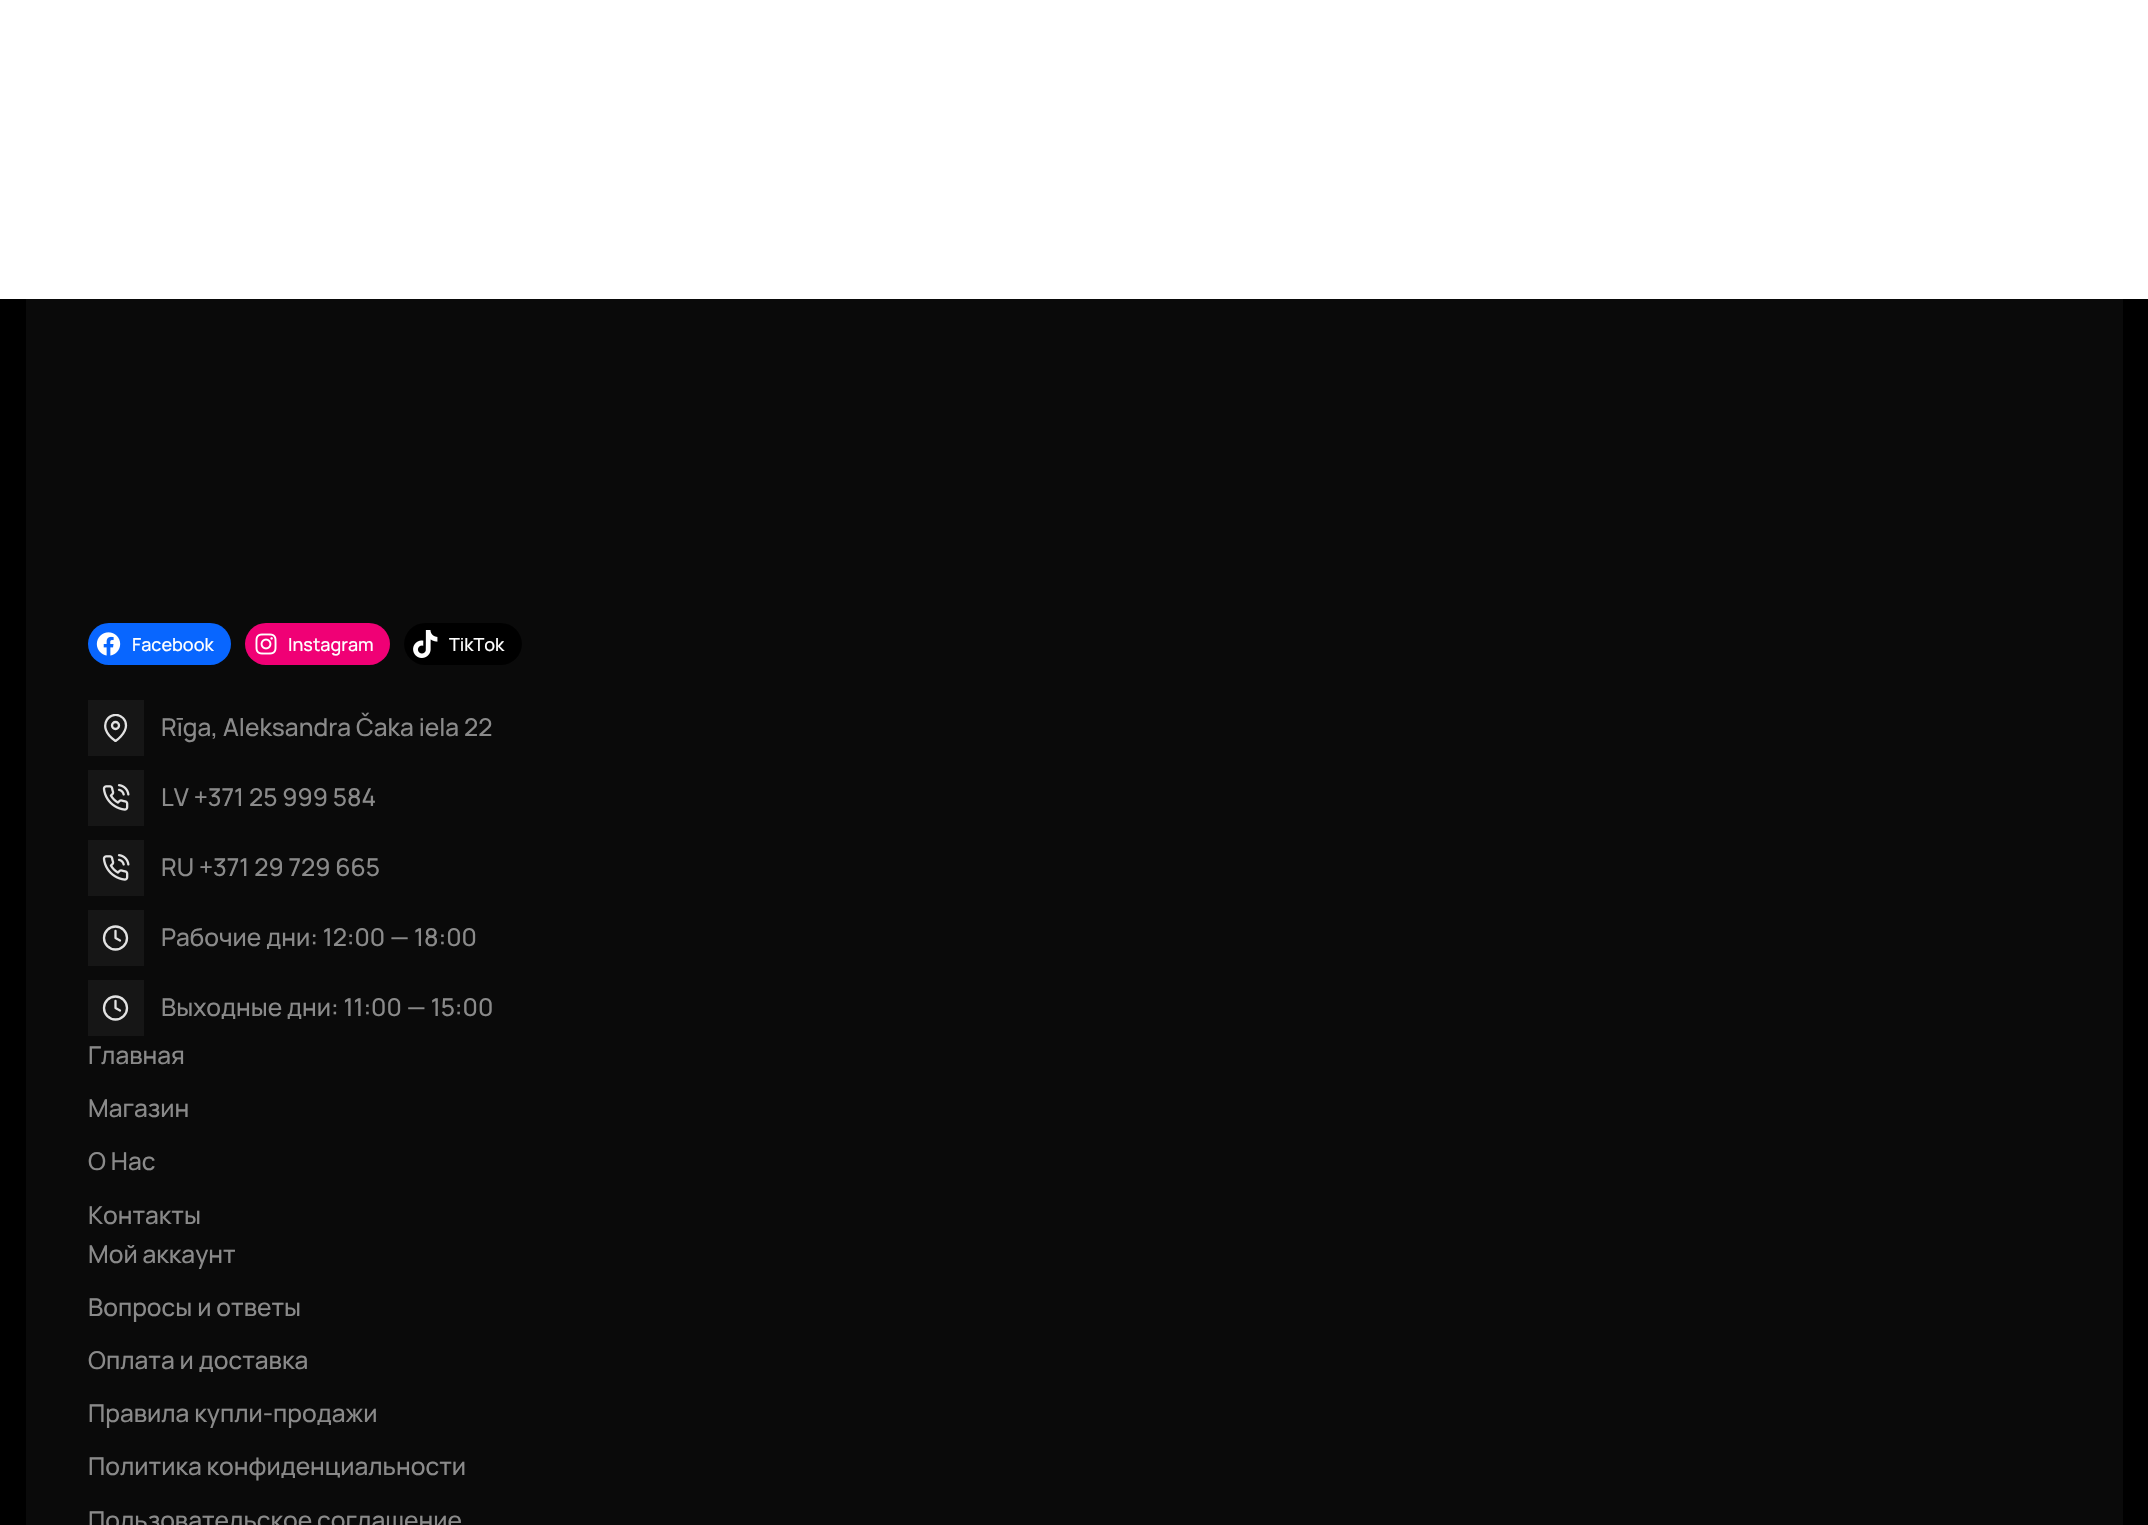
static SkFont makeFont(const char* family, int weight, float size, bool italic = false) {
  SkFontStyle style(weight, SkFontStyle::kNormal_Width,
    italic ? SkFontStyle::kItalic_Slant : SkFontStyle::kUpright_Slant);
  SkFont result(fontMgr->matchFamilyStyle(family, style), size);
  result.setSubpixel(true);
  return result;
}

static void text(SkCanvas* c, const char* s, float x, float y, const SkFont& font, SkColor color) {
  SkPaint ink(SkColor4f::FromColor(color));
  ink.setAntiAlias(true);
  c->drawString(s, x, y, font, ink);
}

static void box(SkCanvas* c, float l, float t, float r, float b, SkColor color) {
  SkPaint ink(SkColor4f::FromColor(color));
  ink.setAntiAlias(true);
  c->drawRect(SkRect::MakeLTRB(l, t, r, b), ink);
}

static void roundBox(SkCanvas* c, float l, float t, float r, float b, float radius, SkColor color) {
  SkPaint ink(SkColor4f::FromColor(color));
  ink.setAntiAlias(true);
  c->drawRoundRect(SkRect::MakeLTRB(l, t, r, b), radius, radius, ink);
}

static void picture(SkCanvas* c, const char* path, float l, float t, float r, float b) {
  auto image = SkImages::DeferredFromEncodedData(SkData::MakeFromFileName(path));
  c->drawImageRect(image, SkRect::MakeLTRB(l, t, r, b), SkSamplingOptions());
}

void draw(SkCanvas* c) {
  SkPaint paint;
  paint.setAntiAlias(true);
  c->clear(0xffffffff);
  box(c, 0, 299, 2148, 1525, 0xff000000);
  box(c, 26, 299, 2123, 1525, 0xff0a0a0a);
  roundBox(c, 88, 623, 231, 665, 21, 0xff0866ff);
  picture(c, "img_01.png", 96, 632, 121, 656);
  SkFont face1 = makeFont("Manrope", 500, 18);
  text(c, "Facebook", 132, 651, face1, 0xffffffff);
  roundBox(c, 245, 623, 390, 665, 21, 0xfff00075);
  picture(c, "img_02.png", 255, 633, 277, 655);
  text(c, "Instagram", 288, 651, face1, 0xffffffff);
  roundBox(c, 404, 623, 522, 665, 21, 0xff000000);
  picture(c, "img_03.png", 413, 630, 438, 658);
  text(c, "TikTok", 449, 651, face1, 0xffffffff);
  box(c, 88, 700, 144, 756, 0xff161616);
  c->save();
  c->clipRect(SkRect::MakeLTRB(102, 714, 130, 742));
  paint.setStyle(SkPaint::kStroke_Style);
  paint.setStrokeWidth(2.3f);
  paint.setStrokeCap(SkPaint::kRound_Cap);
  paint.setStrokeJoin(SkPaint::kRound_Join);
  paint.setColor(0xffe2e2e2);
  c->drawPath(SkPathBuilder().moveTo(126, 725.5f).cubicTo(126, 734, 115.5f, 741, 115.5f, 741).cubicTo(93.5f, 726, 112, 707.5f, 123, 718).cubicTo(125, 720, 126, 723, 126, 725.5f).close().detach(), paint);
  c->restore();
  paint.setStrokeCap(SkPaint::kButt_Cap);
  paint.setStrokeJoin(SkPaint::kMiter_Join);
  c->drawCircle(115.5f, 725.5f, 3.5f, paint);
  SkFont face2 = makeFont("Manrope", 500, 24.5f);
  text(c, "Rīga, Aleksandra Čaka iela 22", 161, 736, face2, 0xff8a8a8a);
  box(c, 88, 770, 144, 826, 0xff161616);
  picture(c, "img_04.png", 102, 784, 130, 811);
  text(c, "LV +371 25 999 584", 161, 806, face2, 0xff8a8a8a);
  box(c, 88, 840, 144, 896, 0xff161616);
  picture(c, "img_04.png", 102, 854, 130, 881);
  text(c, "RU +371 29 729 665", 161, 876, face2, 0xff8a8a8a);
  box(c, 88, 910, 144, 966, 0xff161616);
  c->drawCircle(115.5f, 938, 11.5f, paint);
  paint.setStrokeCap(SkPaint::kRound_Cap);
  paint.setStrokeJoin(SkPaint::kRound_Join);
  c->drawPath(SkPathBuilder().moveTo(115.5f, 931).lineTo(115.5f, 938).lineTo(120, 940.5f).detach(), paint);
  text(c, "Рабочие дни: 12:00 — 18:00", 161, 946, face2, 0xff8a8a8a);
  box(c, 88, 980, 144, 1036, 0xff161616);
  paint.setStrokeCap(SkPaint::kButt_Cap);
  paint.setStrokeJoin(SkPaint::kMiter_Join);
  c->drawCircle(115.5f, 1008, 11.5f, paint);
  paint.setStrokeCap(SkPaint::kRound_Cap);
  paint.setStrokeJoin(SkPaint::kRound_Join);
  c->drawPath(SkPathBuilder().moveTo(115.5f, 1001).lineTo(115.5f, 1008).lineTo(120, 1010.5f).detach(), paint);
  text(c, "Выходные дни: 11:00 — 15:00", 161, 1016, face2, 0xff8a8a8a);
  text(c, "Главная", 88, 1064, face2, 0xff8a8a8a);
  text(c, "Магазин", 88, 1117, face2, 0xff8a8a8a);
  text(c, "О Нас", 88, 1170, face2, 0xff8a8a8a);
  text(c, "Контакты", 88, 1224, face2, 0xff8a8a8a);
  text(c, "Мой аккаунт", 88, 1263, face2, 0xff8a8a8a);
  text(c, "Вопросы и ответы", 88, 1316, face2, 0xff8a8a8a);
  text(c, "Оплата и доставка", 88, 1369, face2, 0xff8a8a8a);
  text(c, "Правила купли-продажи", 88, 1422, face2, 0xff8a8a8a);
  text(c, "Политика конфиденциальности", 88, 1475, face2, 0xff8a8a8a);
  text(c, "Пользовательское соглашение", 88, 1529, face2, 0xff8a8a8a);
}
